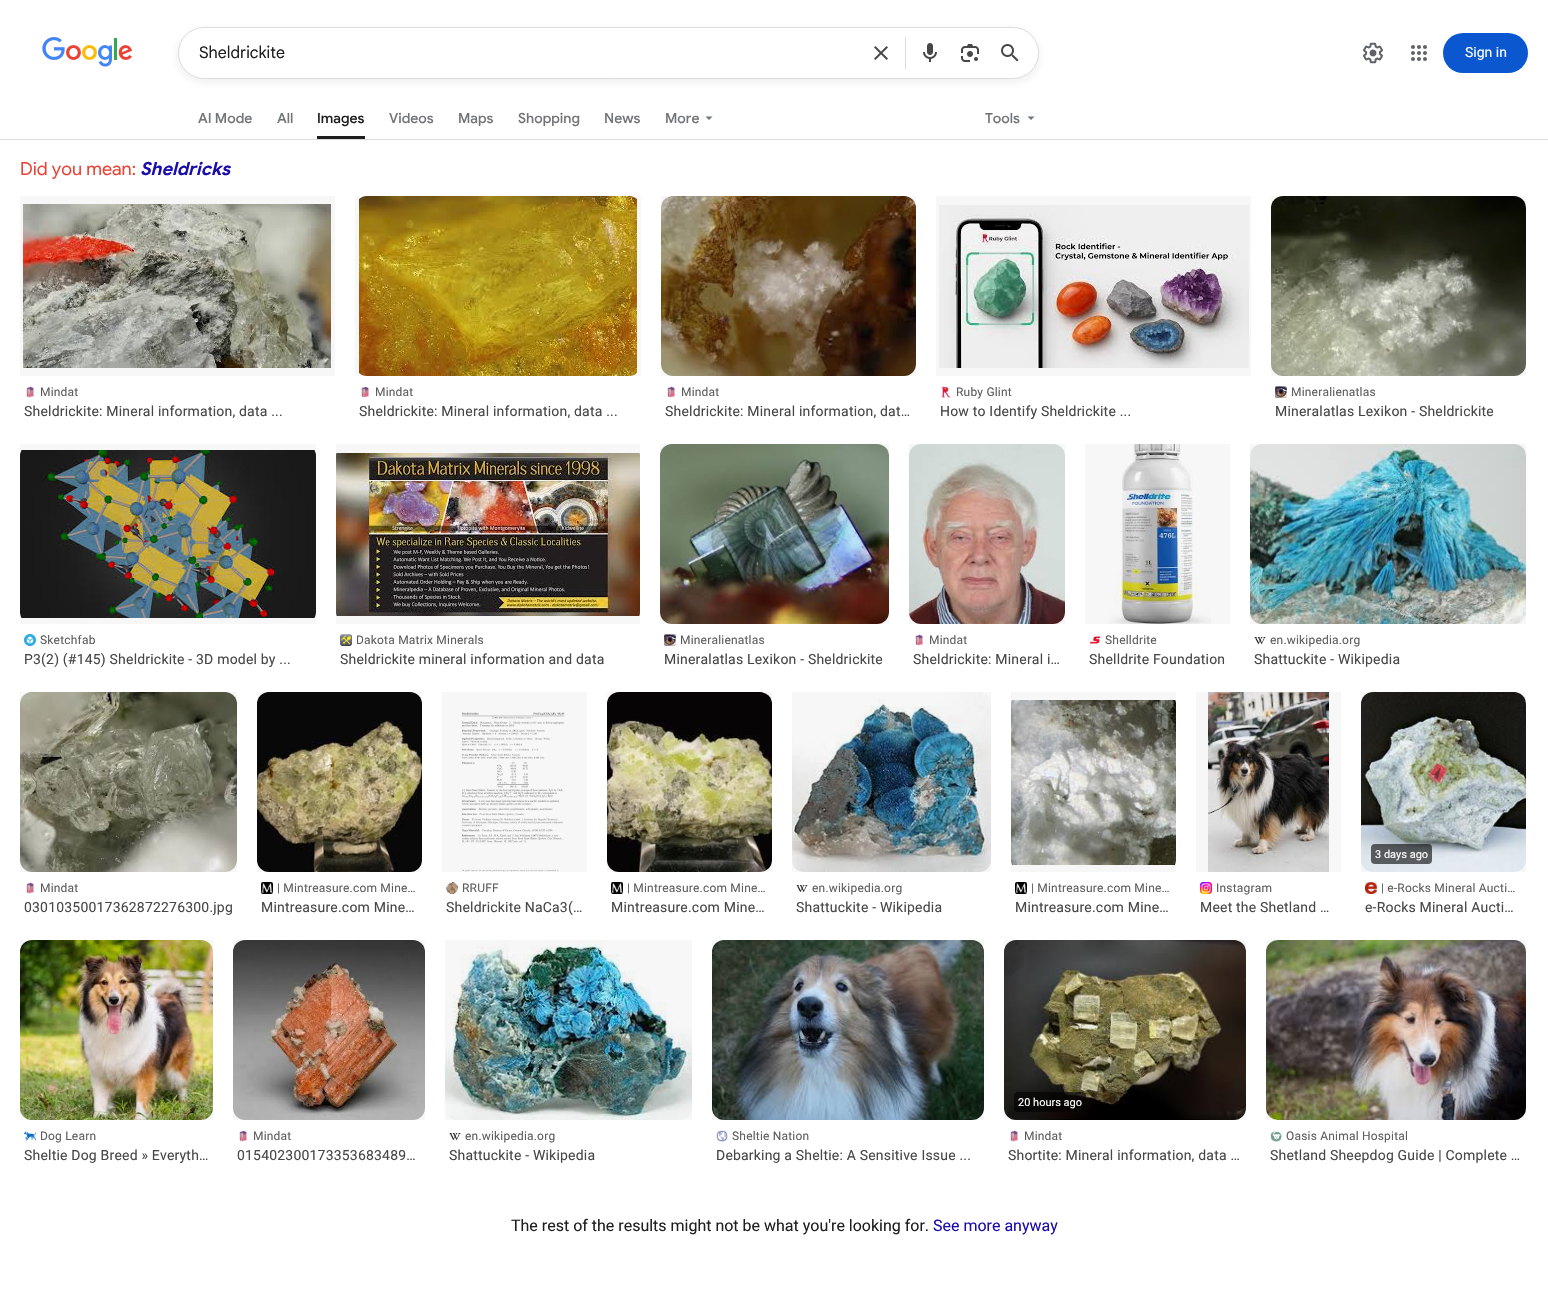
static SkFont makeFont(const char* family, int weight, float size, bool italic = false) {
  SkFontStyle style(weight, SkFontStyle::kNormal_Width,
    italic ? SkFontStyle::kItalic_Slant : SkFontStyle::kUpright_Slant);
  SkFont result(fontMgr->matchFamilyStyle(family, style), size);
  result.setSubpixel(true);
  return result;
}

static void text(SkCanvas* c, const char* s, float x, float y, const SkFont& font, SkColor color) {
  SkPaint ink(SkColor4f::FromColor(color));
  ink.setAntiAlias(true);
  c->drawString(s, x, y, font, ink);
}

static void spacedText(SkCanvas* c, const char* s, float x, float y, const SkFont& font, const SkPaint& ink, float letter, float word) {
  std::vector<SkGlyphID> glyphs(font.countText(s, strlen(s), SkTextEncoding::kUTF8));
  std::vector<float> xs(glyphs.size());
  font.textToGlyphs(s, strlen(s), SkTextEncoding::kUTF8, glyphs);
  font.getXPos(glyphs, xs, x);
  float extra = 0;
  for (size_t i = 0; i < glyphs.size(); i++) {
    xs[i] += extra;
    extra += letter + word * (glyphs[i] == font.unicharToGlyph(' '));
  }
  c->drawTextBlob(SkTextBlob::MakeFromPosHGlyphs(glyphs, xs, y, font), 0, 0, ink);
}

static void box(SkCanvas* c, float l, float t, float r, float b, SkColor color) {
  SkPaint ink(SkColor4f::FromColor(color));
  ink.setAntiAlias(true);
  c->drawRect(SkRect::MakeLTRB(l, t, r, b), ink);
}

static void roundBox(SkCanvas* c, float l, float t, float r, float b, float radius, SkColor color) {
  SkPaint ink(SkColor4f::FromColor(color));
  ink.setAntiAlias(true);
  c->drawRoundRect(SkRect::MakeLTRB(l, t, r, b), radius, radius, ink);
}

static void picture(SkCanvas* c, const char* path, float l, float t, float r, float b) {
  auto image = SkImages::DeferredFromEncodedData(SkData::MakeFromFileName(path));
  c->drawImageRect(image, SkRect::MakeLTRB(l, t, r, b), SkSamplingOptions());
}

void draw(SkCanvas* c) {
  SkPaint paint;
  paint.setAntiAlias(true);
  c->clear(0xffffffff);
  picture(c, "img_01.png", 42, 37, 132, 67);
  paint.setColor(0x141f1f1f);
  paint.setMaskFilter(SkMaskFilter::MakeBlur(kNormal_SkBlurStyle, 5));
  c->drawRoundRect(SkRect::MakeLTRB(178, 30, 1039, 82), 26, 26, paint);
  paint.setMaskFilter(nullptr);
  paint.setColor(0xffffffff);
  c->drawRoundRect(SkRect::MakeLTRB(178.5f, 27.5f, 1038.5f, 78.5f), 25.5f, 25.5f, paint);
  paint.setStyle(SkPaint::kStroke_Style);
  paint.setStrokeWidth(1);
  paint.setColor(0xffdadce0);
  c->drawRoundRect(SkRect::MakeLTRB(178.5f, 27.5f, 1038.5f, 78.5f), 25.5f, 25.5f, paint);
  SkFont face1 = makeFont("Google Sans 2", 400, 16);
  text(c, "Sheldrickite", 199, 58, face1, 0xff1f1f1f);
  picture(c, "img_02.png", 874, 46, 888, 60);
  box(c, 905, 37, 906, 69, 0xffdadce0);
  picture(c, "img_03.png", 923, 43, 937, 62);
  picture(c, "img_04.png", 961, 44, 979, 62);
  picture(c, "img_05.png", 1001, 44, 1019, 62);
  picture(c, "img_06.png", 1363, 42, 1383, 64);
  picture(c, "img_07.png", 1411, 45, 1427, 61);
  roundBox(c, 1443, 33, 1528, 73, 20, 0xff0b57d0);
  SkFont face2 = makeFont("Roboto", 400, 14);
  text(c, "Sign in", 1465, 57, face2, 0xffffffff);
  SkFont face3 = makeFont("Google Sans", 500, 14);
  text(c, "AI Mode", 198, 123, face3, 0xff70757a);
  text(c, "All", 277, 123, face3, 0xff70757a);
  box(c, 317, 136, 365, 139, 0xff1f1f1f);
  text(c, "Images", 317, 123, face3, 0xff1f1f1f);
  text(c, "Videos", 389, 123, face3, 0xff70757a);
  text(c, "Maps", 458, 123, face3, 0xff70757a);
  text(c, "Shopping", 518, 123, face3, 0xff70757a);
  text(c, "News", 604, 123, face3, 0xff70757a);
  text(c, "More", 665, 123, face3, 0xff70757a);
  paint.setStyle(SkPaint::kFill_Style);
  paint.setColor(0xff70757a);
  c->drawPath(SkPathBuilder().moveTo(705.5f, 116.5f).lineTo(709, 120).lineTo(712.5f, 116.5f).close().detach(), paint);
  text(c, "Tools", 985, 123, face3, 0xff70757a);
  c->drawPath(SkPathBuilder().moveTo(1027.5f, 116.5f).lineTo(1031, 120).lineTo(1034.5f, 116.5f).close().detach(), paint);
  box(c, 0, 139, 1548, 140, 0xffdadce0);
  SkFont face4 = makeFont("Google Sans", 400, 18);
  text(c, "Did you mean:", 20, 175, face4, 0xffea4335);
  SkFont face5 = makeFont("Google Sans", 700, 18, true);
  text(c, "Sheldricks", 140, 175, face5, 0xff1a0dab);
  picture(c, "img_08.png", 23, 204, 331, 368);
  box(c, 20, 196, 335, 376, 0x08000000);
  picture(c, "img_09.png", 26, 386, 34, 398);
  SkFont face6 = makeFont("Roboto", 400, 12);
  paint.setColor(0xff5e5e5e);
  spacedText(c, "Mindat", 40, 396, face6, paint, 0.2f, 0);
  paint.setColor(0xff474747);
  spacedText(c, "Sheldrickite: Mineral information, data ...", 24, 416, face2, paint, 0.2f, 0);
  picture(c, "img_10.png", 359, 196, 637, 376);
  box(c, 355, 196, 641, 376, 0x08000000);
  picture(c, "img_09.png", 361, 386, 369, 398);
  paint.setColor(0xff5e5e5e);
  spacedText(c, "Mindat", 375, 396, face6, paint, 0.2f, 0);
  paint.setColor(0xff474747);
  spacedText(c, "Sheldrickite: Mineral information, data ...", 359, 416, face2, paint, 0.2f, 0);
  picture(c, "img_11.png", 661, 196, 916, 376);
  box(c, 661, 196, 916, 376, 0x08000000);
  picture(c, "img_12.png", 667, 386, 675, 398);
  paint.setColor(0xff5e5e5e);
  spacedText(c, "Mindat", 681, 396, face6, paint, 0.2f, 0);
  paint.setColor(0xff474747);
  spacedText(c, "Sheldrickite: Mineral information, dat…", 665, 416, face2, paint, 0.2f, 0);
  picture(c, "img_13.png", 939, 205, 1249, 368);
  box(c, 936, 196, 1251, 376, 0x08000000);
  picture(c, "img_14.png", 941, 386, 951, 398);
  paint.setColor(0xff5e5e5e);
  spacedText(c, "Ruby Glint", 956, 396, face6, paint, 0.2f, 0);
  paint.setColor(0xff474747);
  spacedText(c, "How to Identify Sheldrickite ...", 940, 416, face2, paint, 0.2f, 0);
  picture(c, "img_15.png", 1271, 196, 1526, 376);
  box(c, 1271, 196, 1526, 376, 0x08000000);
  picture(c, "img_16.png", 1275, 386, 1287, 398);
  paint.setColor(0xff5e5e5e);
  spacedText(c, "Mineralienatlas", 1291, 396, face6, paint, 0.2f, 0);
  paint.setColor(0xff474747);
  spacedText(c, "Mineralatlas Lexikon - Sheldrickite", 1275, 416, face2, paint, 0.2f, 0);
  picture(c, "img_17.png", 20, 450, 316, 618);
  box(c, 20, 444, 316, 624, 0x08000000);
  picture(c, "img_18.png", 24, 634, 36, 646);
  paint.setColor(0xff5e5e5e);
  spacedText(c, "Sketchfab", 40, 644, face6, paint, 0.2f, 0);
  paint.setColor(0xff474747);
  spacedText(c, "P3(2) (#145) Sheldrickite - 3D model by ...", 24, 664, face2, paint, 0.2f, 0);
  picture(c, "img_19.png", 336, 453, 640, 616);
  box(c, 336, 444, 640, 624, 0x08000000);
  picture(c, "img_20.png", 340, 634, 352, 646);
  paint.setColor(0xff5e5e5e);
  spacedText(c, "Dakota Matrix Minerals", 356, 644, face6, paint, 0.2f, 0);
  paint.setColor(0xff474747);
  spacedText(c, "Sheldrickite mineral information and data", 340, 664, face2, paint, 0.2f, 0);
  picture(c, "img_21.png", 660, 444, 889, 624);
  box(c, 660, 444, 889, 624, 0x08000000);
  picture(c, "img_22.png", 664, 634, 676, 646);
  paint.setColor(0xff5e5e5e);
  spacedText(c, "Mineralienatlas", 680, 644, face6, paint, 0.2f, 0);
  paint.setColor(0xff474747);
  spacedText(c, "Mineralatlas Lexikon - Sheldrickite", 664, 664, face2, paint, 0.2f, 0);
  picture(c, "img_23.png", 909, 444, 1065, 624);
  box(c, 909, 444, 1065, 624, 0x08000000);
  picture(c, "img_12.png", 915, 634, 923, 646);
  paint.setColor(0xff5e5e5e);
  spacedText(c, "Mindat", 929, 644, face6, paint, 0.2f, 0);
  paint.setColor(0xff474747);
  spacedText(c, "Sheldrickite: Mineral i…", 913, 664, face2, paint, 0.2f, 0);
  picture(c, "img_24.png", 1108, 444, 1211, 624);
  box(c, 1085, 444, 1230, 624, 0x08000000);
  picture(c, "img_25.png", 1089, 636, 1101, 644);
  paint.setColor(0xff5e5e5e);
  spacedText(c, "Shelldrite", 1105, 644, face6, paint, 0.2f, 0);
  paint.setColor(0xff474747);
  spacedText(c, "Shelldrite Foundation", 1089, 664, face2, paint, 0.2f, 0);
  picture(c, "img_26.png", 1250, 444, 1526, 624);
  box(c, 1250, 444, 1526, 624, 0x08000000);
  picture(c, "img_27.png", 1254, 637, 1266, 645);
  paint.setColor(0xff5e5e5e);
  spacedText(c, "en.wikipedia.org", 1270, 644, face6, paint, 0.2f, 0);
  paint.setColor(0xff474747);
  spacedText(c, "Shattuckite - Wikipedia", 1254, 664, face2, paint, 0.2f, 0);
  picture(c, "img_28.png", 20, 692, 237, 872);
  box(c, 20, 692, 237, 872, 0x08000000);
  picture(c, "img_09.png", 26, 882, 34, 894);
  paint.setColor(0xff5e5e5e);
  spacedText(c, "Mindat", 40, 892, face6, paint, 0.2f, 0);
  paint.setColor(0xff474747);
  spacedText(c, "03010350017362872276300.jpg", 24, 912, face2, paint, 0.2f, 0);
  picture(c, "img_29.png", 257, 692, 422, 872);
  box(c, 257, 692, 422, 872, 0x08000000);
  picture(c, "img_30.png", 261, 882, 273, 894);
  paint.setColor(0xff5e5e5e);
  spacedText(c, "| Mintreasure.com Mine…", 277, 892, face6, paint, 0.2f, 0);
  paint.setColor(0xff474747);
  spacedText(c, "Mintreasure.com Mine…", 261, 912, face2, paint, 0.2f, 0);
  picture(c, "img_31.png", 462, 712, 565, 872);
  box(c, 442, 692, 587, 872, 0x08000000);
  picture(c, "img_32.png", 446, 882, 458, 894);
  paint.setColor(0xff5e5e5e);
  spacedText(c, "RRUFF", 462, 892, face6, paint, 0.2f, 0);
  paint.setColor(0xff474747);
  spacedText(c, "Sheldrickite NaCa3(…", 446, 912, face2, paint, 0.2f, 0);
  picture(c, "img_33.png", 607, 692, 772, 872);
  box(c, 607, 692, 772, 872, 0x08000000);
  picture(c, "img_30.png", 611, 882, 623, 894);
  paint.setColor(0xff5e5e5e);
  spacedText(c, "| Mintreasure.com Mine…", 627, 892, face6, paint, 0.2f, 0);
  paint.setColor(0xff474747);
  spacedText(c, "Mintreasure.com Mine…", 611, 912, face2, paint, 0.2f, 0);
  picture(c, "img_34.png", 792, 692, 991, 872);
  box(c, 792, 692, 991, 872, 0x08000000);
  picture(c, "img_27.png", 796, 885, 808, 893);
  paint.setColor(0xff5e5e5e);
  spacedText(c, "en.wikipedia.org", 812, 892, face6, paint, 0.2f, 0);
  paint.setColor(0xff474747);
  spacedText(c, "Shattuckite - Wikipedia", 796, 912, face2, paint, 0.2f, 0);
  picture(c, "img_35.png", 1011, 700, 1176, 865);
  box(c, 1011, 692, 1176, 872, 0x08000000);
  picture(c, "img_36.png", 1015, 882, 1027, 894);
  paint.setColor(0xff5e5e5e);
  spacedText(c, "| Mintreasure.com Mine…", 1031, 892, face6, paint, 0.2f, 0);
  paint.setColor(0xff474747);
  spacedText(c, "Mintreasure.com Mine…", 1015, 912, face2, paint, 0.2f, 0);
  picture(c, "img_37.png", 1208, 692, 1329, 872);
  box(c, 1196, 692, 1341, 872, 0x08000000);
  picture(c, "img_38.png", 1200, 882, 1212, 894);
  paint.setColor(0xff5e5e5e);
  spacedText(c, "Instagram", 1216, 892, face6, paint, 0.2f, 0);
  paint.setColor(0xff474747);
  spacedText(c, "Meet the Shetland …", 1200, 912, face2, paint, 0.2f, 0);
  picture(c, "img_39.png", 1361, 692, 1526, 872);
  box(c, 1361, 692, 1526, 872, 0x08000000);
  roundBox(c, 1371, 844, 1432, 864, 4, 0x99000000);
  SkFont face7 = makeFont("Roboto", 400, 11);
  text(c, "3 days ago", 1375, 858, face7, 0xffffffff);
  picture(c, "img_40.png", 1365, 882, 1377, 894);
  paint.setColor(0xff5e5e5e);
  spacedText(c, "| e-Rocks Mineral Aucti…", 1381, 892, face6, paint, 0.2f, 0);
  paint.setColor(0xff474747);
  spacedText(c, "e-Rocks Mineral Aucti…", 1365, 912, face2, paint, 0.2f, 0);
  picture(c, "img_41.png", 20, 940, 213, 1120);
  box(c, 20, 940, 213, 1120, 0x08000000);
  picture(c, "img_42.png", 24, 1131, 36, 1141);
  paint.setColor(0xff5e5e5e);
  spacedText(c, "Dog Learn", 40, 1140, face6, paint, 0.2f, 0);
  paint.setColor(0xff474747);
  spacedText(c, "Sheltie Dog Breed » Everyth…", 24, 1160, face2, paint, 0.2f, 0);
  picture(c, "img_43.png", 233, 940, 425, 1120);
  box(c, 233, 940, 425, 1120, 0x08000000);
  picture(c, "img_09.png", 239, 1130, 247, 1142);
  paint.setColor(0xff5e5e5e);
  spacedText(c, "Mindat", 253, 1140, face6, paint, 0.2f, 0);
  paint.setColor(0xff474747);
  spacedText(c, "015402300173353683489…", 237, 1160, face2, paint, 0.2f, 0);
  picture(c, "img_44.png", 445, 940, 692, 1120);
  box(c, 445, 940, 692, 1120, 0x08000000);
  picture(c, "img_45.png", 449, 1133, 461, 1141);
  paint.setColor(0xff5e5e5e);
  spacedText(c, "en.wikipedia.org", 465, 1140, face6, paint, 0.2f, 0);
  paint.setColor(0xff474747);
  spacedText(c, "Shattuckite - Wikipedia", 449, 1160, face2, paint, 0.2f, 0);
  picture(c, "img_46.png", 712, 940, 984, 1120);
  box(c, 712, 940, 984, 1120, 0x08000000);
  picture(c, "img_47.png", 716, 1130, 728, 1142);
  paint.setColor(0xff5e5e5e);
  spacedText(c, "Sheltie Nation", 732, 1140, face6, paint, 0.2f, 0);
  paint.setColor(0xff474747);
  spacedText(c, "Debarking a Sheltie: A Sensitive Issue ...", 716, 1160, face2, paint, 0.2f, 0);
  picture(c, "img_48.png", 1004, 940, 1246, 1120);
  box(c, 1004, 940, 1246, 1120, 0x08000000);
  roundBox(c, 1014, 1092, 1086, 1112, 4, 0x99000000);
  text(c, "20 hours ago", 1018, 1106, face7, 0xffffffff);
  picture(c, "img_09.png", 1010, 1130, 1018, 1142);
  paint.setColor(0xff5e5e5e);
  spacedText(c, "Mindat", 1024, 1140, face6, paint, 0.2f, 0);
  paint.setColor(0xff474747);
  spacedText(c, "Shortite: Mineral information, data …", 1008, 1160, face2, paint, 0.2f, 0);
  picture(c, "img_49.png", 1266, 940, 1526, 1120);
  box(c, 1266, 940, 1526, 1120, 0x08000000);
  picture(c, "img_50.png", 1270, 1131, 1282, 1142);
  paint.setColor(0xff5e5e5e);
  spacedText(c, "Oasis Animal Hospital", 1286, 1140, face6, paint, 0.2f, 0);
  paint.setColor(0xff474747);
  spacedText(c, "Shetland Sheepdog Guide | Complete …", 1270, 1160, face2, paint, 0.2f, 0);
  SkFont face8 = makeFont("Roboto", 400, 16);
  text(c, "The rest of the results might not be what you're looking for.", 511, 1231, face8, 0xff1f1f1f);
  text(c, "See more anyway", 933, 1231, face8, 0xff1a0dab);
}
